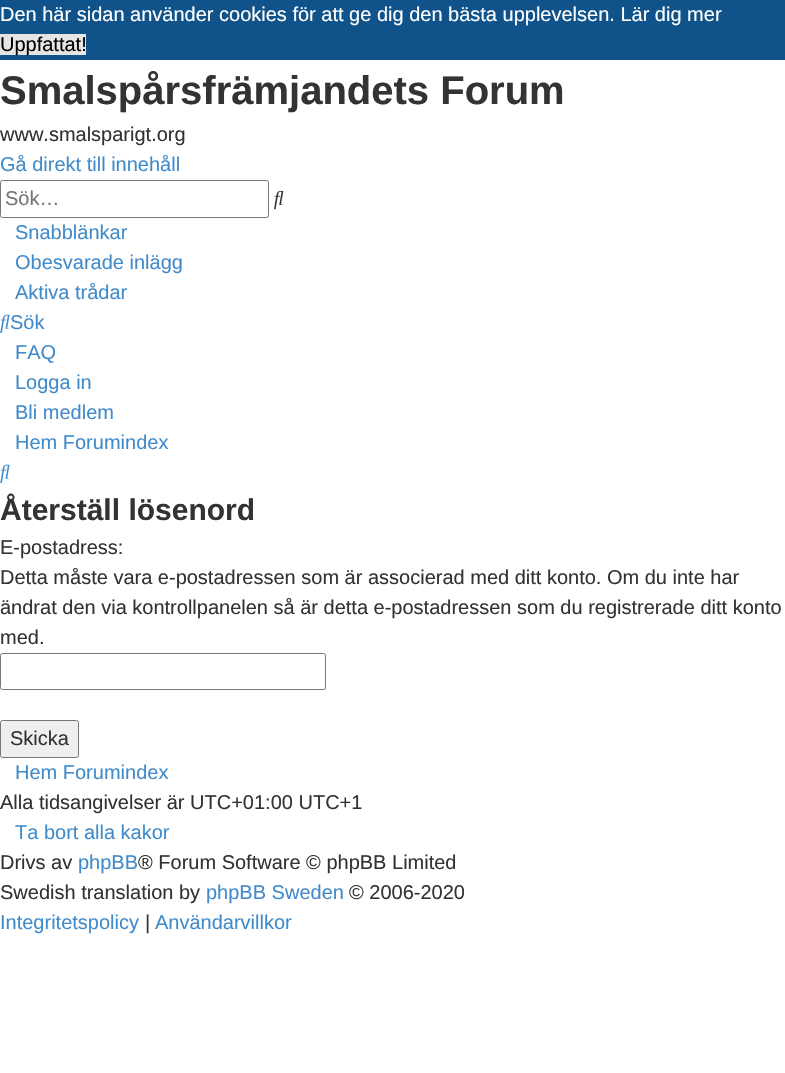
static SkFont makeFont(const char* family, int weight, float size, bool italic = false) {
  SkFontStyle style(weight, SkFontStyle::kNormal_Width,
    italic ? SkFontStyle::kItalic_Slant : SkFontStyle::kUpright_Slant);
  SkFont result(fontMgr->matchFamilyStyle(family, style), size);
  result.setSubpixel(true);
  return result;
}

static void text(SkCanvas* c, const char* s, float x, float y, const SkFont& font, SkColor color) {
  SkPaint ink(SkColor4f::FromColor(color));
  ink.setAntiAlias(true);
  c->drawString(s, x, y, font, ink);
}

static void box(SkCanvas* c, float l, float t, float r, float b, SkColor color) {
  SkPaint ink(SkColor4f::FromColor(color));
  ink.setAntiAlias(true);
  c->drawRect(SkRect::MakeLTRB(l, t, r, b), ink);
}

static void picture(SkCanvas* c, const char* path, float l, float t, float r, float b) {
  auto image = SkImages::DeferredFromEncodedData(SkData::MakeFromFileName(path));
  c->drawImageRect(image, SkRect::MakeLTRB(l, t, r, b), SkSamplingOptions());
}

void draw(SkCanvas* c) {
  SkPaint paint;
  paint.setAntiAlias(true);
  c->clear(0xffffffff);
  box(c, 0, 0, 785, 60, 0xff0f538a);
  SkFont face1 = makeFont("Liberation Sans", 400, 20);
  text(c, "Den här sidan använder cookies för att ge dig den bästa upplevelsen. Lär dig mer", 0, 21, face1, 0xffffffff);
  box(c, 0, 34, 86, 55, 0xffe5e5e5);
  text(c, "Uppfattat!", 0, 51, face1, 0xff000000);
  SkFont face2 = makeFont("Liberation Sans", 700, 40);
  text(c, "Smalspårsfrämjandets Forum", 0, 104, face2, 0xff333333);
  text(c, "www.smalsparigt.org", 0, 141, face1, 0xff333333);
  text(c, "Gå direkt till innehåll", 0, 171, face1, 0xff428bca);
  paint.setStyle(SkPaint::kStroke_Style);
  paint.setStrokeWidth(1);
  paint.setColor(0xff767676);
  c->drawRoundRect(SkRect::MakeLTRB(0.5f, 180.5f, 268.5f, 217.5f), 2, 2, paint);
  text(c, "Sök…", 5, 205, face1, 0xff757575);
  picture(c, "img_01.png", 274, 190, 284, 210);
  text(c, "Snabblänkar", 15, 239, face1, 0xff428bca);
  text(c, "Obesvarade inlägg", 15, 269, face1, 0xff428bca);
  text(c, "Aktiva trådar", 15, 299, face1, 0xff428bca);
  picture(c, "img_02.png", 0, 314, 10, 333);
  text(c, "Sök", 10, 329, face1, 0xff428bca);
  text(c, "FAQ", 15, 359, face1, 0xff428bca);
  text(c, "Logga in", 15, 389, face1, 0xff428bca);
  text(c, "Bli medlem", 15, 419, face1, 0xff428bca);
  text(c, "Hem Forumindex", 15, 449, face1, 0xff428bca);
  picture(c, "img_02.png", 0, 464, 10, 483);
  SkFont face3 = makeFont("Liberation Sans", 700, 30);
  text(c, "Återställ lösenord", 0, 520, face3, 0xff333333);
  text(c, "E-postadress:", 0, 554, face1, 0xff333333);
  text(c, "Detta måste vara e-postadressen som är associerad med ditt konto. Om du inte har", 0, 584, face1, 0xff333333);
  text(c, "ändrat den via kontrollpanelen så är detta e-postadressen som du registrerade ditt konto", 0, 614, face1, 0xff333333);
  text(c, "med.", 0, 644, face1, 0xff333333);
  c->drawRoundRect(SkRect::MakeLTRB(0.5f, 653.5f, 325.5f, 689.5f), 2, 2, paint);
  paint.setStyle(SkPaint::kFill_Style);
  paint.setColor(0xffefefef);
  c->drawRoundRect(SkRect::MakeLTRB(0.5f, 720.5f, 78.5f, 757.5f), 2, 2, paint);
  paint.setStyle(SkPaint::kStroke_Style);
  paint.setColor(0xff767676);
  c->drawRoundRect(SkRect::MakeLTRB(0.5f, 720.5f, 78.5f, 757.5f), 2, 2, paint);
  text(c, "Skicka", 10, 745, face1, 0xff333333);
  text(c, "Hem Forumindex", 15, 779, face1, 0xff428bca);
  text(c, "Alla tidsangivelser är UTC+01:00 UTC+1", 0, 809, face1, 0xff333333);
  text(c, "Ta bort alla kakor", 15, 839, face1, 0xff428bca);
  text(c, "Drivs av", 0, 869, face1, 0xff333333);
  text(c, "phpBB", 78, 869, face1, 0xff428bca);
  text(c, "® Forum Software © phpBB Limited", 138, 869, face1, 0xff333333);
  text(c, "Swedish translation by", 0, 899, face1, 0xff333333);
  text(c, "phpBB Sweden", 206, 899, face1, 0xff428bca);
  text(c, "© 2006-2020", 349, 899, face1, 0xff333333);
  text(c, "Integritetspolicy", 0, 929, face1, 0xff428bca);
  text(c, "|", 145, 929, face1, 0xff333333);
  text(c, "Användarvillkor", 155, 929, face1, 0xff428bca);
}
